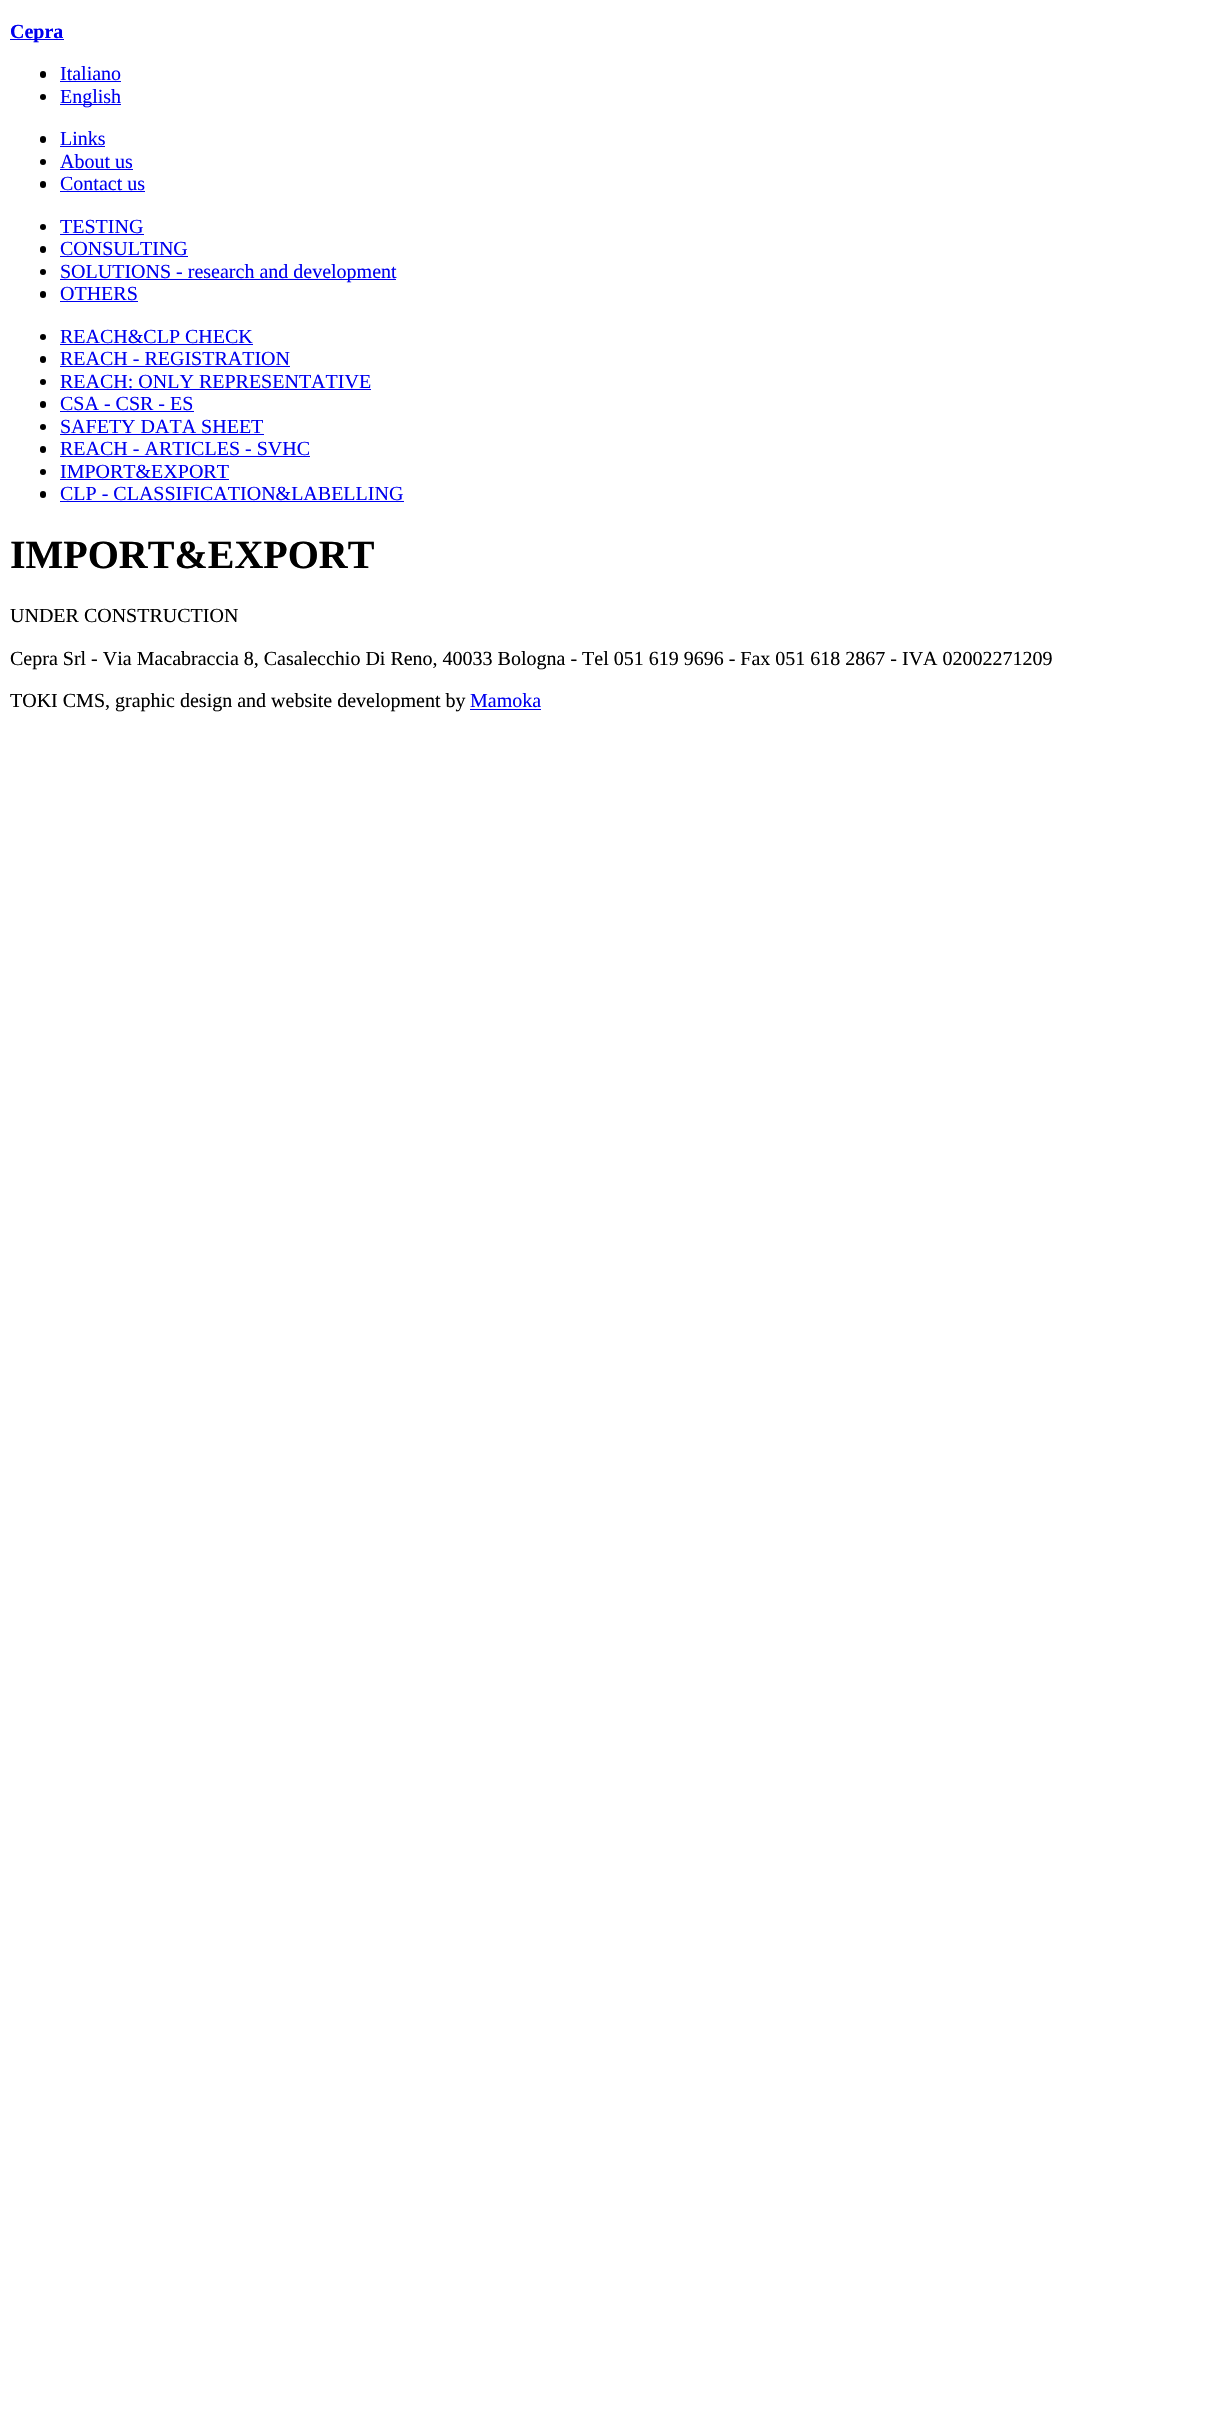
static SkFont makeFont(const char* family, int weight, float size, bool italic = false) {
  SkFontStyle style(weight, SkFontStyle::kNormal_Width,
    italic ? SkFontStyle::kItalic_Slant : SkFontStyle::kUpright_Slant);
  SkFont result(fontMgr->matchFamilyStyle(family, style), size);
  result.setSubpixel(true);
  return result;
}

static void text(SkCanvas* c, const char* s, float x, float y, const SkFont& font, SkColor color) {
  SkPaint ink(SkColor4f::FromColor(color));
  ink.setAntiAlias(true);
  c->drawString(s, x, y, font, ink);
}

static void box(SkCanvas* c, float l, float t, float r, float b, SkColor color) {
  SkPaint ink(SkColor4f::FromColor(color));
  ink.setAntiAlias(true);
  c->drawRect(SkRect::MakeLTRB(l, t, r, b), ink);
}

static void roundBox(SkCanvas* c, float l, float t, float r, float b, float radius, SkColor color) {
  SkPaint ink(SkColor4f::FromColor(color));
  ink.setAntiAlias(true);
  c->drawRoundRect(SkRect::MakeLTRB(l, t, r, b), radius, radius, ink);
}

void draw(SkCanvas* c) {
  SkPaint paint;
  paint.setAntiAlias(true);
  c->clear(0xffffffff);
  box(c, 10, 39, 64, 40, 0xff0000ee);
  SkFont face1 = makeFont("Liberation Serif", 700, 20);
  text(c, "Cepra", 10, 38, face1, 0xff0000ee);
  roundBox(c, 40, 71, 46, 78, 3, 0xff000000);
  SkFont face2 = makeFont("Liberation Serif", 400, 20);
  text(c, "Italiano", 60, 80, face2, 0xff0000ee);
  box(c, 60, 81, 121, 82, 0xff0000ee);
  paint.setColor(0xff000000);
  c->drawCircle(43, 97, 3, paint);
  box(c, 60, 104, 121, 105, 0xff0000ee);
  text(c, "English", 60, 103, face2, 0xff0000ee);
  roundBox(c, 40, 136, 46, 143, 3, 0xff000000);
  text(c, "Links", 60, 145, face2, 0xff0000ee);
  box(c, 60, 146, 105, 147, 0xff0000ee);
  c->drawCircle(43, 162, 3, paint);
  text(c, "About us", 60, 168, face2, 0xff0000ee);
  box(c, 60, 169, 133, 170, 0xff0000ee);
  roundBox(c, 40, 181, 46, 188, 3, 0xff000000);
  text(c, "Contact us", 60, 190, face2, 0xff0000ee);
  box(c, 60, 191, 145, 192, 0xff0000ee);
  c->drawCircle(43, 227, 3, paint);
  text(c, "TESTING", 60, 233, face2, 0xff0000ee);
  box(c, 60, 234, 144, 235, 0xff0000ee);
  roundBox(c, 40, 246, 46, 253, 3, 0xff000000);
  text(c, "CONSULTING", 60, 255, face2, 0xff0000ee);
  box(c, 60, 256, 188, 257, 0xff0000ee);
  c->drawCircle(43, 272, 3, paint);
  box(c, 60, 279, 396, 280, 0xff0000ee);
  text(c, "SOLUTIONS - research and development", 60, 278, face2, 0xff0000ee);
  roundBox(c, 40, 291, 46, 298, 3, 0xff000000);
  text(c, "OTHERS", 60, 300, face2, 0xff0000ee);
  box(c, 60, 301, 138, 302, 0xff0000ee);
  c->drawCircle(43, 337, 3, paint);
  text(c, "REACH&CLP CHECK", 60, 343, face2, 0xff0000ee);
  box(c, 60, 344, 253, 345, 0xff0000ee);
  roundBox(c, 40, 356, 46, 363, 3, 0xff000000);
  text(c, "REACH - REGISTRATION", 60, 365, face2, 0xff0000ee);
  box(c, 60, 366, 290, 367, 0xff0000ee);
  c->drawCircle(43, 382, 3, paint);
  text(c, "REACH: ONLY REPRESENTATIVE", 60, 388, face2, 0xff0000ee);
  box(c, 60, 389, 371, 390, 0xff0000ee);
  roundBox(c, 40, 401, 46, 408, 3, 0xff000000);
  text(c, "CSA - CSR - ES", 60, 410, face2, 0xff0000ee);
  box(c, 60, 411, 194, 412, 0xff0000ee);
  c->drawCircle(43, 427, 3, paint);
  text(c, "SAFETY DATA SHEET", 60, 433, face2, 0xff0000ee);
  box(c, 60, 434, 264, 435, 0xff0000ee);
  roundBox(c, 40, 446, 46, 453, 3, 0xff000000);
  text(c, "REACH - ARTICLES - SVHC", 60, 455, face2, 0xff0000ee);
  box(c, 60, 456, 310, 457, 0xff0000ee);
  c->drawCircle(43, 472, 3, paint);
  text(c, "IMPORT&EXPORT", 60, 478, face2, 0xff0000ee);
  box(c, 60, 479, 229, 480, 0xff0000ee);
  roundBox(c, 40, 491, 46, 498, 3, 0xff000000);
  text(c, "CLP - CLASSIFICATION&LABELLING", 60, 500, face2, 0xff0000ee);
  box(c, 60, 501, 404, 502, 0xff0000ee);
  SkFont face3 = makeFont("Liberation Serif", 700, 40);
  text(c, "IMPORT&EXPORT", 10, 568, face3, 0xff000000);
  text(c, "UNDER CONSTRUCTION", 10, 622, face2, 0xff000000);
  text(c, "Cepra Srl - Via Macabraccia 8, Casalecchio Di Reno, 40033 Bologna - Tel 051 619 9696 - Fax 051 618 2867 - IVA 02002271209", 10, 665, face2, 0xff000000);
  text(c, "TOKI CMS, graphic design and website development by", 10, 707, face2, 0xff000000);
  text(c, "Mamoka", 470, 707, face2, 0xff0000ee);
  box(c, 470, 709, 541, 710, 0xff0000ee);
}
